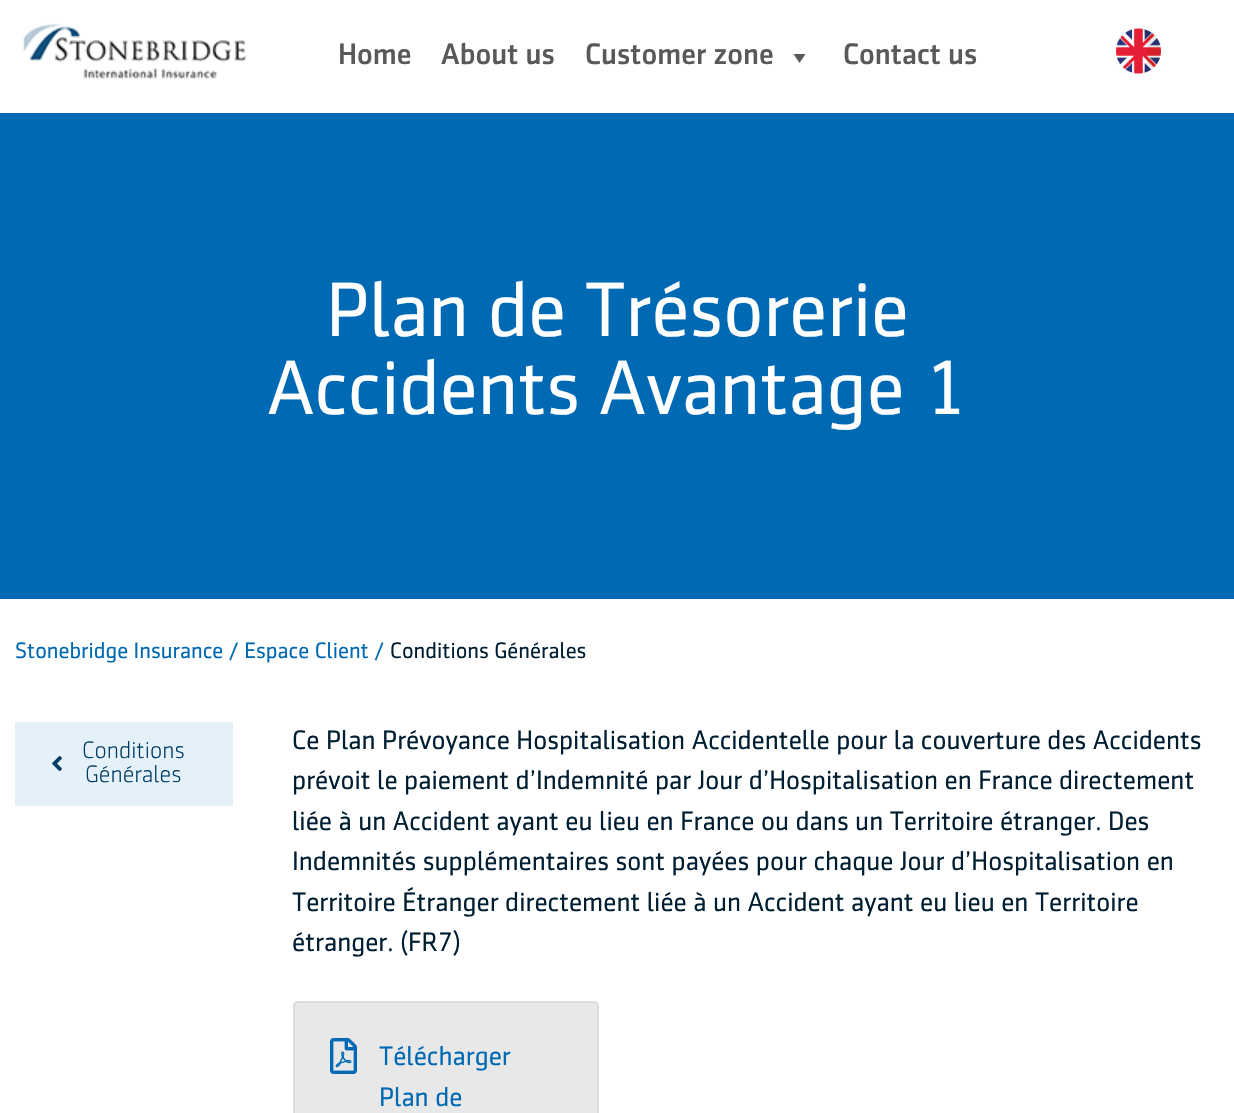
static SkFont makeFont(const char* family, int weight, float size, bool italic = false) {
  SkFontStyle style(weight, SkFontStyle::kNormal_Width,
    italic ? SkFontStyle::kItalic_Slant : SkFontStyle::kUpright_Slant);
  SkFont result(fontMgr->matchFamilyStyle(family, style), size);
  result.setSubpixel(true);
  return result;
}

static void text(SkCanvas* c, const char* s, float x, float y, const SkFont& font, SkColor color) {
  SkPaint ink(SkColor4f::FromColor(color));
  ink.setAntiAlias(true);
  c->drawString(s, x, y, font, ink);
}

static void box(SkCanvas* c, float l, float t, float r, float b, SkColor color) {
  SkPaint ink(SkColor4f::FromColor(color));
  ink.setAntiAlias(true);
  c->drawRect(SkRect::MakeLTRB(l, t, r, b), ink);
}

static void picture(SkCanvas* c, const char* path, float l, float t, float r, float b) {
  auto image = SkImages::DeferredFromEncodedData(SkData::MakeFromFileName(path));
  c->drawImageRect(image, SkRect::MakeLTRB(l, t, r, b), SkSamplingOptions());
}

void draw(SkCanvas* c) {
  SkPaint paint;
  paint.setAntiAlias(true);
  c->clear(0xffffffff);
  picture(c, "img_01.png", 22, 23, 247, 80);
  SkFont face1 = makeFont("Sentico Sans", 500, 30);
  text(c, "Home", 338, 64, face1, 0xff595959);
  text(c, "About us", 441, 64, face1, 0xff595959);
  text(c, "Customer zone", 585, 64, face1, 0xff595959);
  paint.setColor(0xff595959);
  c->drawPath(SkPathBuilder().moveTo(805.5f, 54).lineTo(799.5f, 63).lineTo(793.5f, 54).close().detach(), paint);
  text(c, "Contact us", 843, 64, face1, 0xff595959);
  picture(c, "img_02.png", 1116, 28, 1161, 74);
  box(c, 0, 113, 1234, 599, 0xff0069b4);
  SkFont face2 = makeFont("Sentico Sans", 400, 77.75f);
  text(c, "Plan de Trésorerie", 326, 336, face2, 0xffffffff);
  text(c, "Accidents Avantage 1", 267, 414, face2, 0xffffffff);
  SkFont face3 = makeFont("Sentico Sans", 400, 22.5f);
  text(c, "Stonebridge Insurance / Espace Client /", 15, 658, face3, 0xff0069b4);
  text(c, "Conditions Générales", 390, 658, face3, 0xff001e32);
  box(c, 15, 722, 233, 806, 0xffe5f1f9);
  picture(c, "img_03.png", 52, 756, 62, 771);
  SkFont face4 = makeFont("Sentico Sans", 300, 24);
  text(c, "Conditions", 82, 758, face4, 0xff003c64);
  text(c, "Générales", 85, 782, face4, 0xff003c64);
  SkFont face5 = makeFont("Sentico Sans", 400, 27);
  text(c, "Ce Plan Prévoyance Hospitalisation Accidentelle pour la couverture des Accidents", 292, 749, face5, 0xff001e32);
  text(c, "prévoit le paiement d’Indemnité par Jour d’Hospitalisation en France directement", 292, 789, face5, 0xff001e32);
  text(c, "liée à un Accident ayant eu lieu en France ou dans un Territoire étranger. Des", 292, 830, face5, 0xff001e32);
  text(c, "Indemnités supplémentaires sont payées pour chaque Jour d’Hospitalisation en", 292, 870, face5, 0xff001e32);
  text(c, "Territoire Étranger directement liée à un Accident ayant eu lieu en Territoire", 292, 911, face5, 0xff001e32);
  text(c, "étranger. (FR7)", 292, 951, face5, 0xff001e32);
  paint.setColor(0xffe8e8e8);
  c->drawRoundRect(SkRect::MakeLTRB(294, 1002, 598, 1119), 4, 4, paint);
  paint.setStyle(SkPaint::kStroke_Style);
  paint.setStrokeWidth(2);
  paint.setColor(0xffdbdbdb);
  c->drawRoundRect(SkRect::MakeLTRB(294, 1002, 598, 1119), 4, 4, paint);
  picture(c, "img_04.png", 330, 1038, 357, 1074);
  text(c, "Télécharger", 379, 1065, face5, 0xff0069b4);
  text(c, "Plan de", 379, 1106, face5, 0xff0069b4);
}
